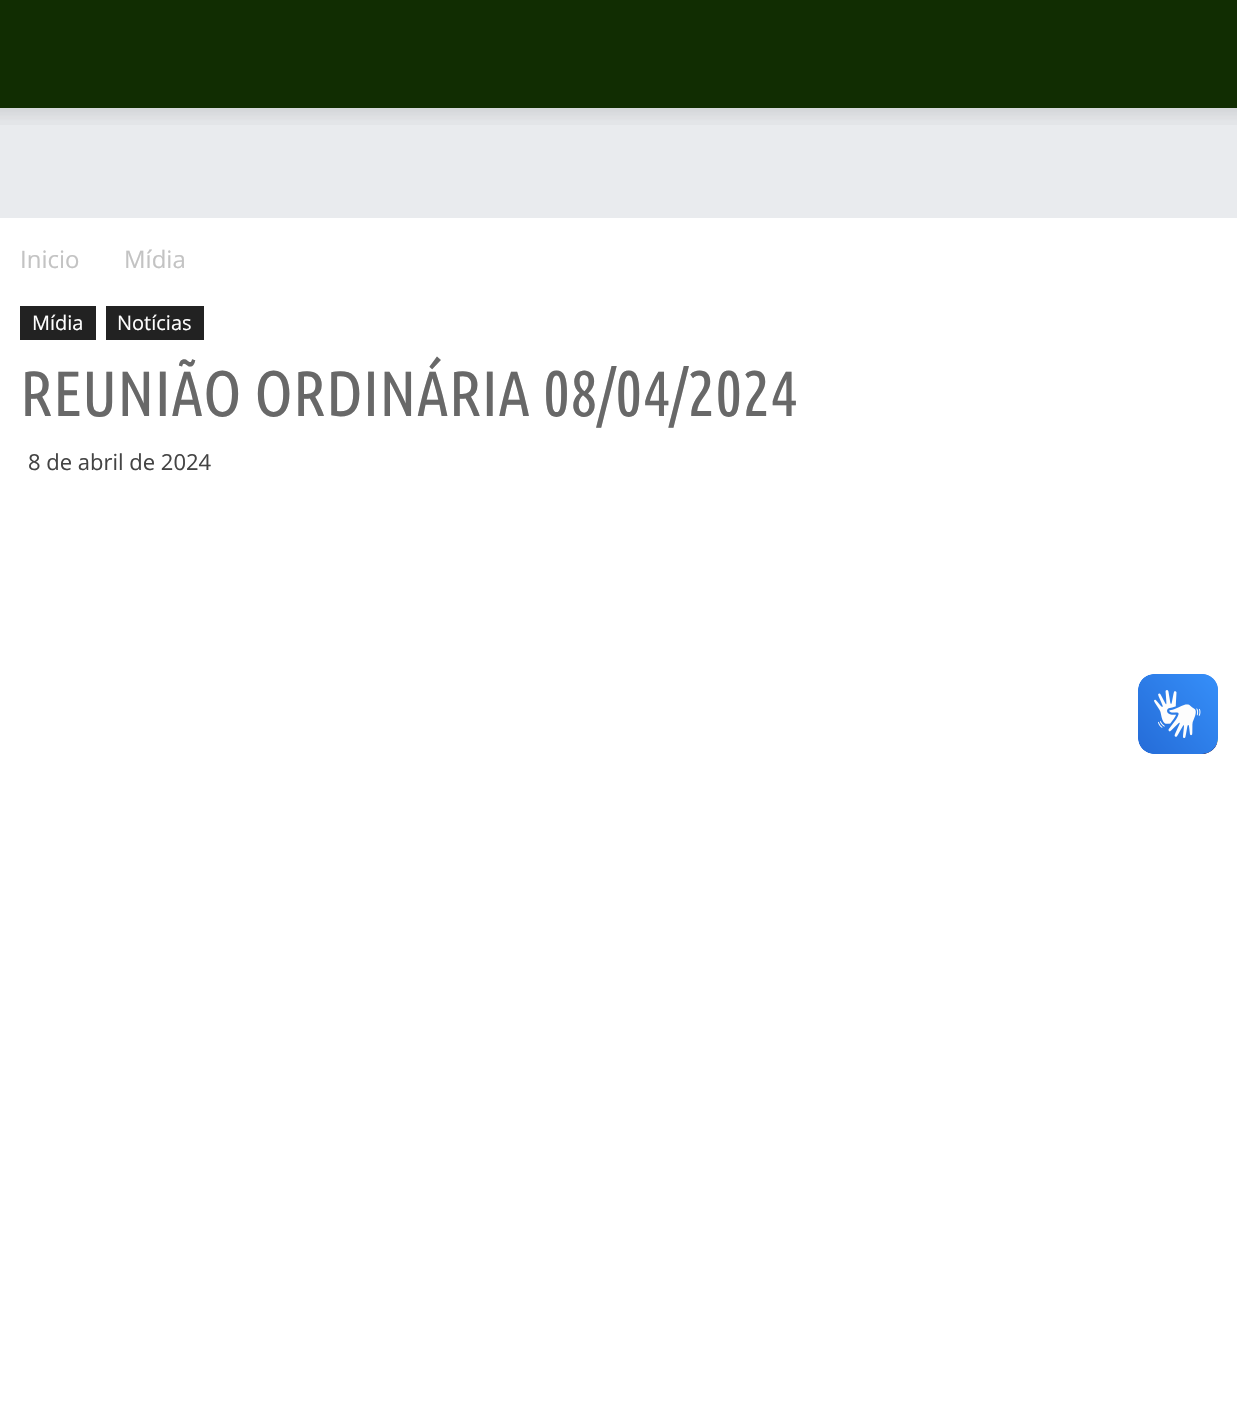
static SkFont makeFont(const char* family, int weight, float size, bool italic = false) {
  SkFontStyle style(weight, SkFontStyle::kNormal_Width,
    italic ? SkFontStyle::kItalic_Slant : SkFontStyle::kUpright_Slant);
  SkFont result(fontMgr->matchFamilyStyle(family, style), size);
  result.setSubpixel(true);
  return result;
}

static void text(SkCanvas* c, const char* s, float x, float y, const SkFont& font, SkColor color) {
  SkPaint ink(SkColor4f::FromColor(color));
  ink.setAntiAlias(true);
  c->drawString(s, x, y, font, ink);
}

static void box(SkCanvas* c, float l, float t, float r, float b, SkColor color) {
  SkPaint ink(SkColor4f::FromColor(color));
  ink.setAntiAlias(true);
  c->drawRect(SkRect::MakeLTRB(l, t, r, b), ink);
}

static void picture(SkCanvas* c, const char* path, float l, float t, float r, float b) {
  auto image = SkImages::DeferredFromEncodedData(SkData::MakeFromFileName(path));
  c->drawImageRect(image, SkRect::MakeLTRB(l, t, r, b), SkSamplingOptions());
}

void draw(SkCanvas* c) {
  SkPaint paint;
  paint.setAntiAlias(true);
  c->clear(0xffffffff);
  box(c, 0, 0, 1237, 108, 0xff112d02);
  box(c, 0, 108, 1237, 218, 0xffe9ebee);
  picture(c, "img_01.png", 0, 108, 1237, 125);
  SkFont face1 = makeFont("Open Sans", 400, 24);
  text(c, "Inicio", 20, 268, face1, 0xffc3c3c3);
  text(c, "Mídia", 124, 268, face1, 0xffc3c3c3);
  box(c, 20, 306, 96, 340, 0xff222222);
  SkFont face2 = makeFont("Open Sans", 400, 20);
  text(c, "Mídia", 32, 330, face2, 0xffffffff);
  box(c, 106, 306, 204, 340, 0xff222222);
  text(c, "Notícias", 117, 330, face2, 0xffffffff);
  SkFont face3 = makeFont("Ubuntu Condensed", 400, 64);
  text(c, "REUNIÃO ORDINÁRIA 08/04/2024", 20, 416, face3, 0xff686868);
  SkFont face4 = makeFont("Open Sans", 400, 22);
  text(c, "8 de abril de 2024", 28, 470, face4, 0xff444444);
  picture(c, "img_02.png", 1138, 674, 1218, 754);
  picture(c, "img_03.png", 1138, 674, 1218, 754);
}
